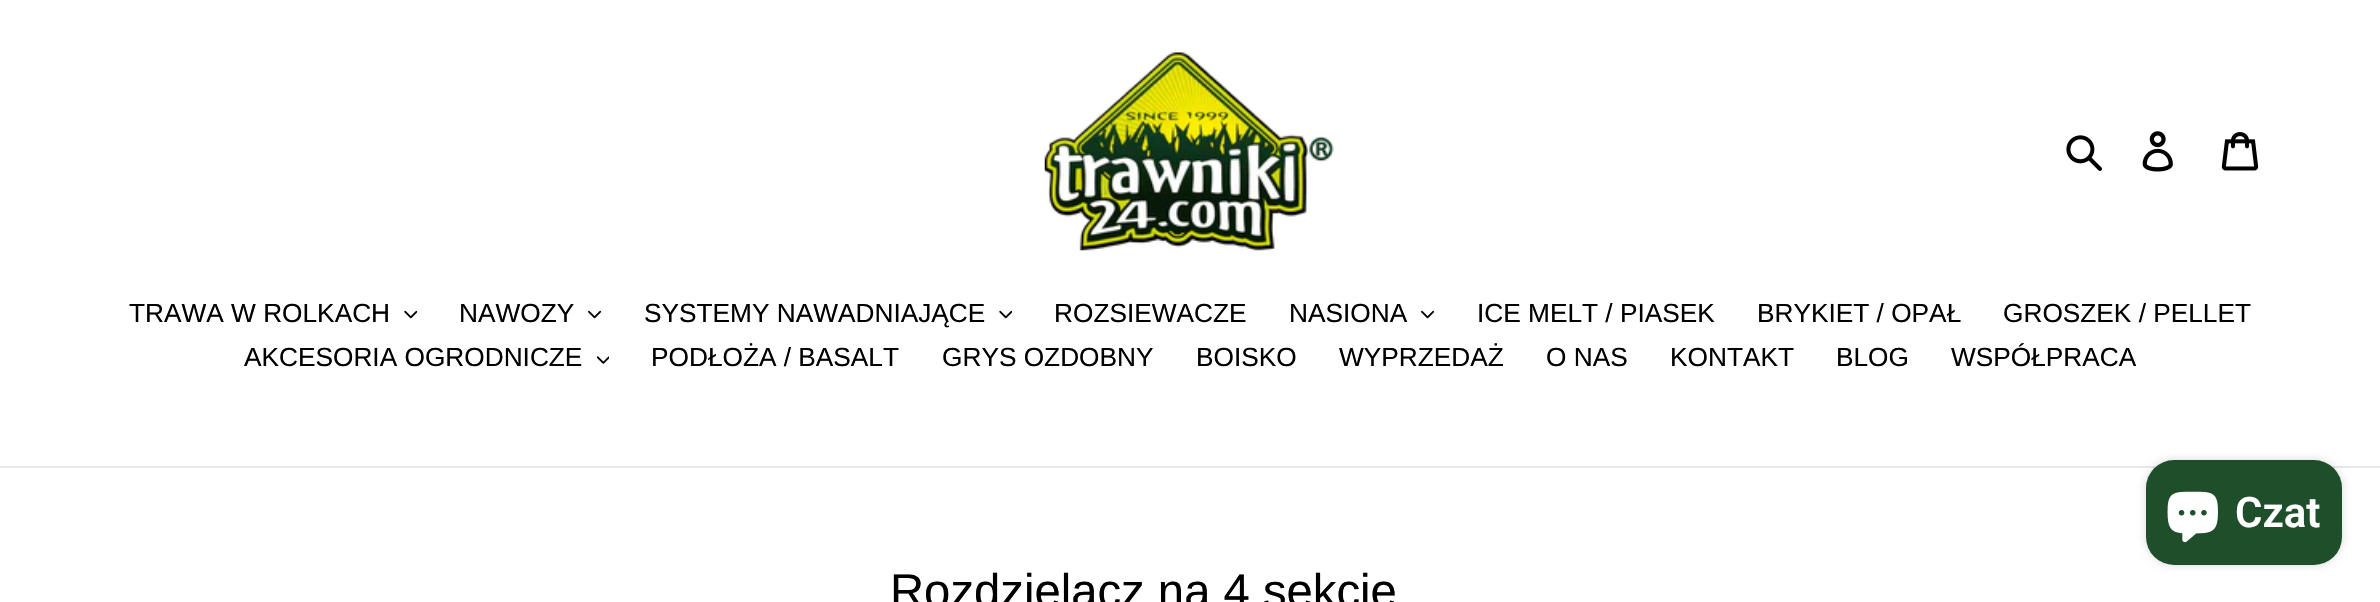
static SkFont makeFont(const char* family, int weight, float size, bool italic = false) {
  SkFontStyle style(weight, SkFontStyle::kNormal_Width,
    italic ? SkFontStyle::kItalic_Slant : SkFontStyle::kUpright_Slant);
  SkFont result(fontMgr->matchFamilyStyle(family, style), size);
  result.setSubpixel(true);
  return result;
}

static void text(SkCanvas* c, const char* s, float x, float y, const SkFont& font, SkColor color) {
  SkPaint ink(SkColor4f::FromColor(color));
  ink.setAntiAlias(true);
  c->drawString(s, x, y, font, ink);
}

static void box(SkCanvas* c, float l, float t, float r, float b, SkColor color) {
  SkPaint ink(SkColor4f::FromColor(color));
  ink.setAntiAlias(true);
  c->drawRect(SkRect::MakeLTRB(l, t, r, b), ink);
}

static void roundBox(SkCanvas* c, float l, float t, float r, float b, float radius, SkColor color) {
  SkPaint ink(SkColor4f::FromColor(color));
  ink.setAntiAlias(true);
  c->drawRoundRect(SkRect::MakeLTRB(l, t, r, b), radius, radius, ink);
}

static void picture(SkCanvas* c, const char* path, float l, float t, float r, float b) {
  auto image = SkImages::DeferredFromEncodedData(SkData::MakeFromFileName(path));
  c->drawImageRect(image, SkRect::MakeLTRB(l, t, r, b), SkSamplingOptions());
}

void draw(SkCanvas* c) {
  SkPaint paint;
  paint.setAntiAlias(true);
  c->clear(0xffffffff);
  picture(c, "img_01.png", 1044, 52, 1334, 251);
  picture(c, "img_02.png", 2066, 135, 2102, 171);
  picture(c, "img_03.png", 2142, 131, 2173, 172);
  picture(c, "img_04.png", 2221, 132, 2259, 171);
  box(c, 0, 466, 2380, 468, 0xffe8e9eb);
  SkFont face1 = makeFont("Arimo", 400, 26.25f);
  text(c, "TRAWA W ROLKACH", 129, 322, face1, 0xff000000);
  picture(c, "img_05.png", 404, 310, 417, 319);
  text(c, "NAWOZY", 459, 322, face1, 0xff000000);
  picture(c, "img_06.png", 588, 310, 602, 319);
  text(c, "SYSTEMY NAWADNIAJĄCE", 644, 322, face1, 0xff000000);
  picture(c, "img_05.png", 999, 310, 1012, 319);
  text(c, "ROZSIEWACZE", 1054, 322, face1, 0xff000000);
  text(c, "NASIONA", 1289, 322, face1, 0xff000000);
  picture(c, "img_06.png", 1421, 310, 1435, 319);
  text(c, "ICE MELT / PIASEK", 1477, 322, face1, 0xff000000);
  text(c, "BRYKIET / OPAŁ", 1757, 322, face1, 0xff000000);
  text(c, "GROSZEK / PELLET", 2003, 322, face1, 0xff000000);
  text(c, "AKCESORIA OGRODNICZE", 244, 366, face1, 0xff000000);
  picture(c, "img_07.png", 597, 356, 609, 364);
  text(c, "PODŁOŻA / BASALT", 651, 366, face1, 0xff000000);
  text(c, "GRYS OZDOBNY", 942, 366, face1, 0xff000000);
  text(c, "BOISKO", 1196, 366, face1, 0xff000000);
  text(c, "WYPRZEDAŻ", 1339, 366, face1, 0xff000000);
  text(c, "O NAS", 1546, 366, face1, 0xff000000);
  text(c, "KONTAKT", 1670, 366, face1, 0xff000000);
  text(c, "BLOG", 1836, 366, face1, 0xff000000);
  text(c, "WSPÓŁPRACA", 1951, 366, face1, 0xff000000);
  paint.setColor(0x26000000);
  paint.setMaskFilter(SkMaskFilter::MakeBlur(kNormal_SkBlurStyle, 4.5f));
  c->drawRoundRect(SkRect::MakeLTRB(2146, 460, 2342, 565), 28, 28, paint);
  paint.setMaskFilter(nullptr);
  roundBox(c, 2146, 460, 2342, 565, 28, 0xff1f4e2a);
  picture(c, "img_08.png", 2167, 491, 2218, 543);
  SkFont face2 = makeFont("Roboto", 600, 42);
  text(c, "Czat", 2235, 527, face2, 0xffffffff);
  SkFont face3 = makeFont("Arimo", 400, 47.25f);
  text(c, "Rozdzielacz na 4 sekcje", 890, 607, face3, 0xff000000);
}
